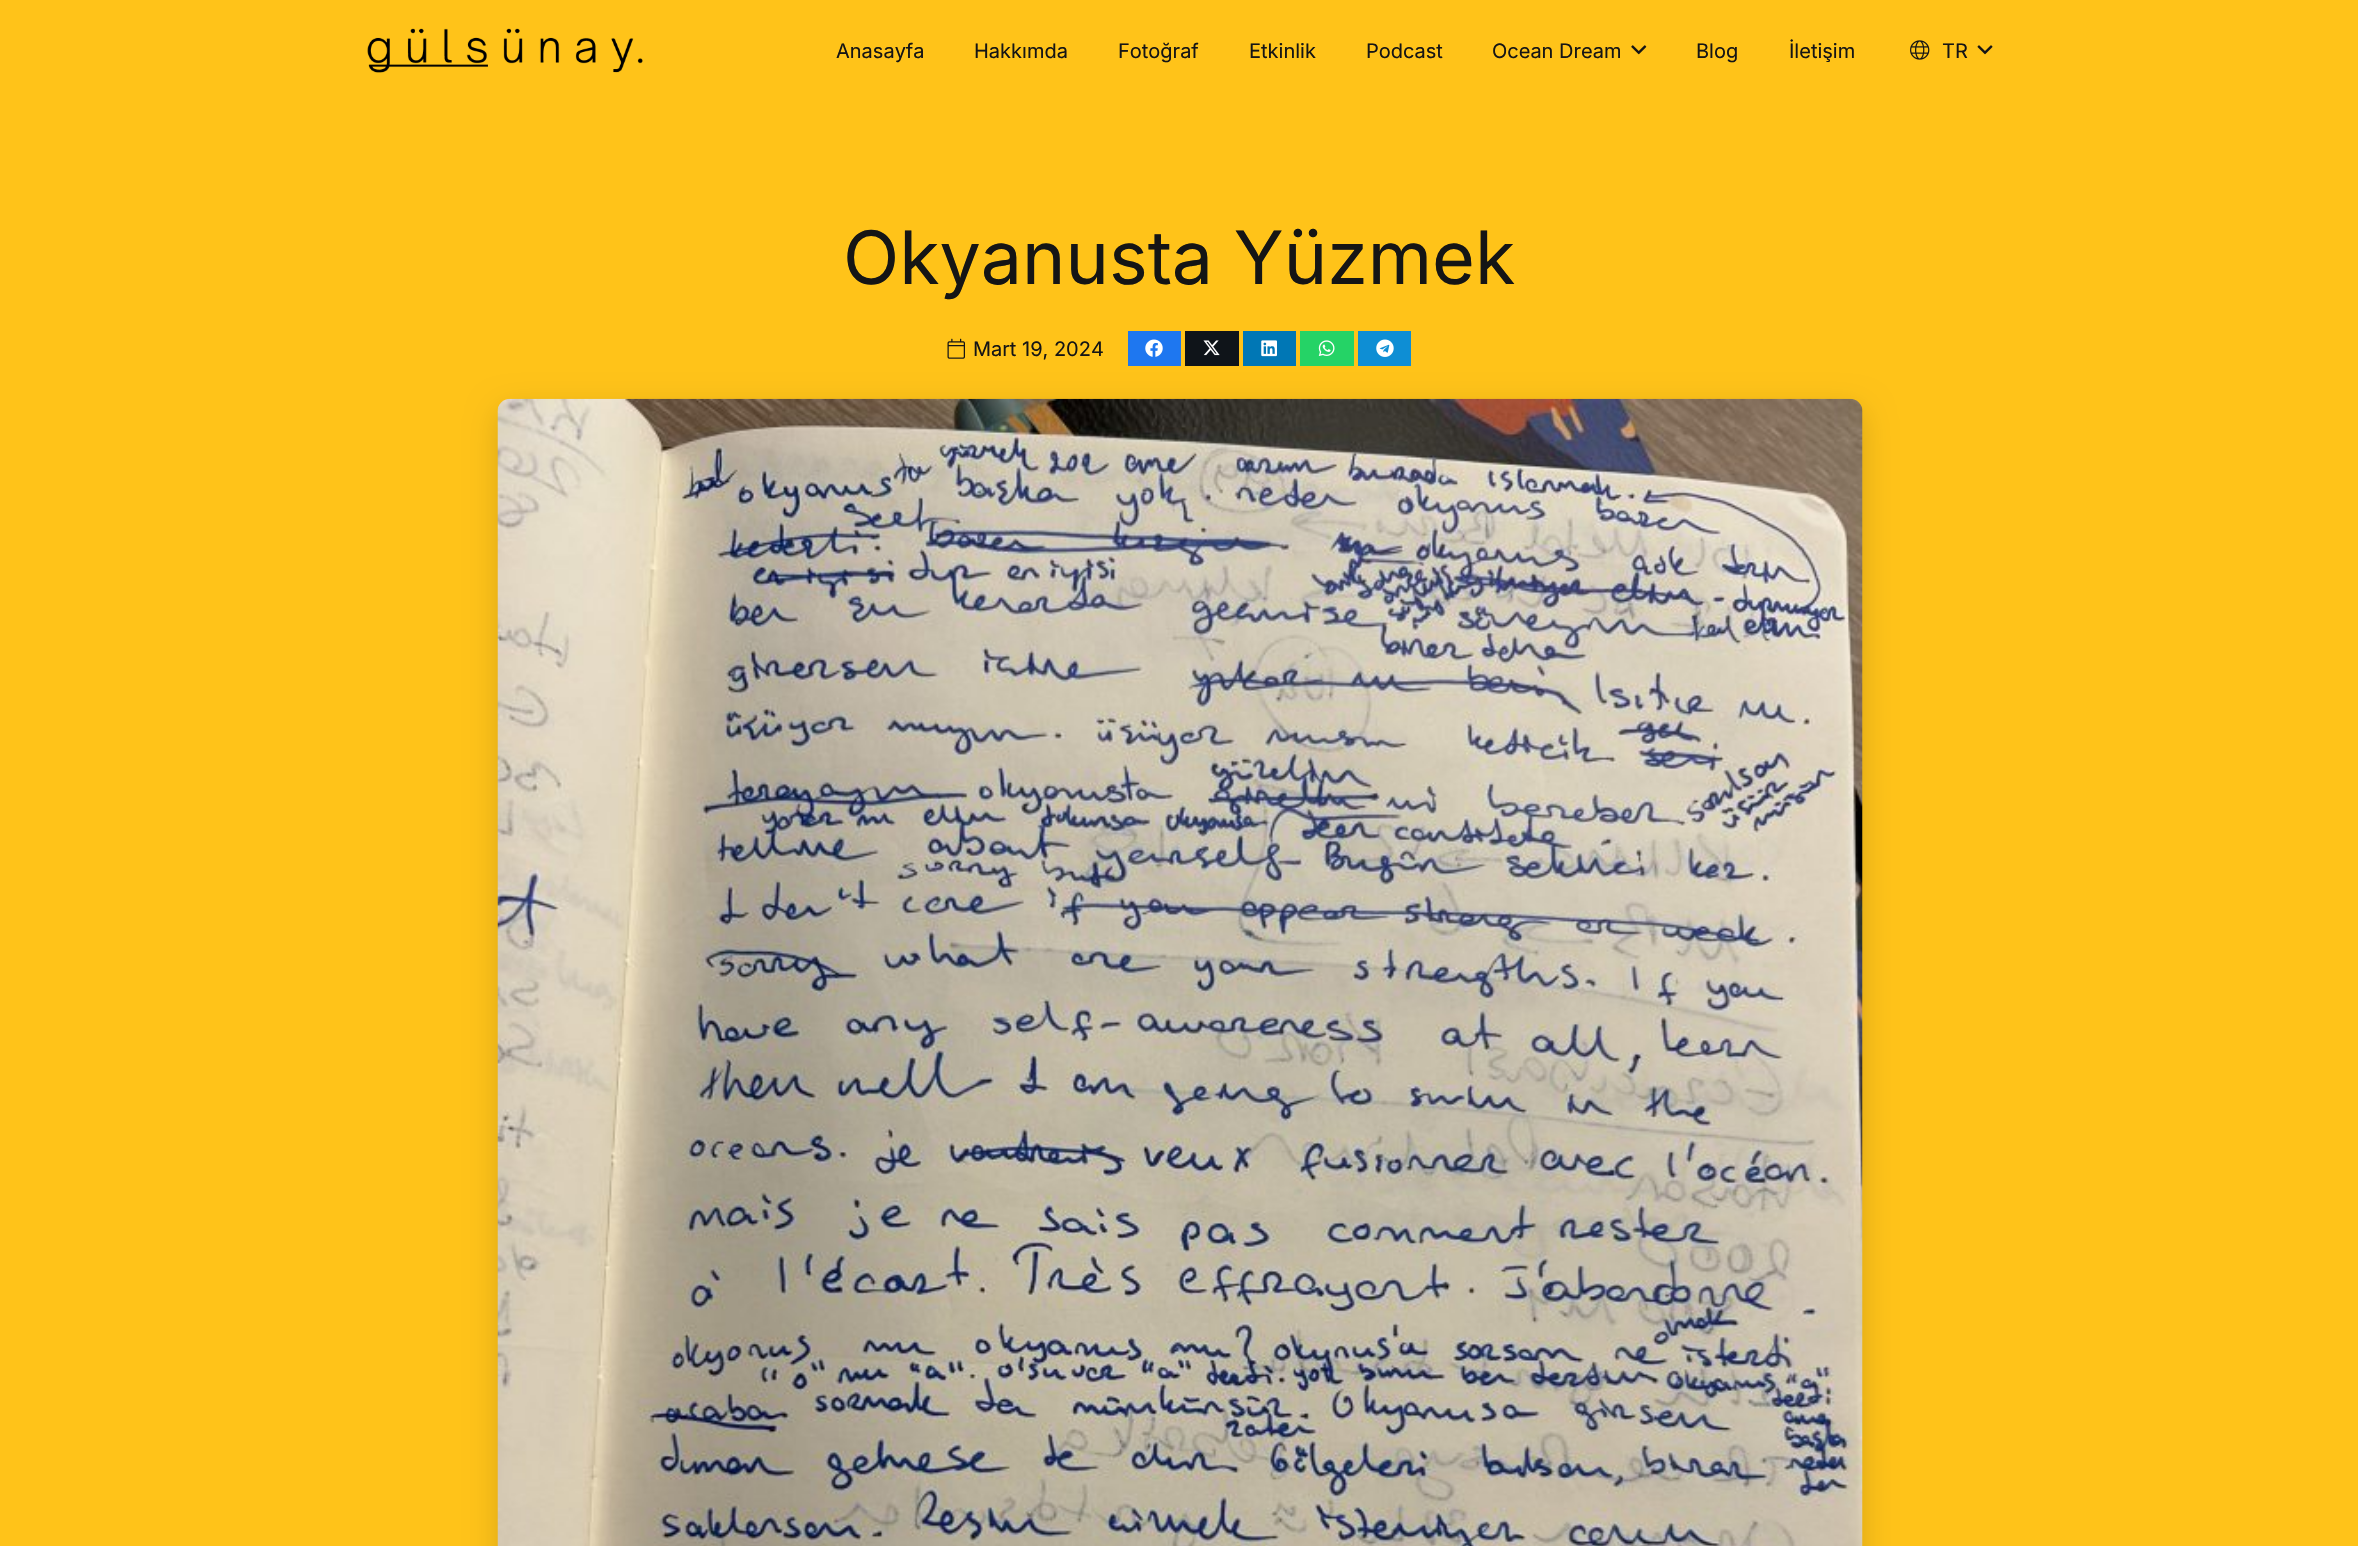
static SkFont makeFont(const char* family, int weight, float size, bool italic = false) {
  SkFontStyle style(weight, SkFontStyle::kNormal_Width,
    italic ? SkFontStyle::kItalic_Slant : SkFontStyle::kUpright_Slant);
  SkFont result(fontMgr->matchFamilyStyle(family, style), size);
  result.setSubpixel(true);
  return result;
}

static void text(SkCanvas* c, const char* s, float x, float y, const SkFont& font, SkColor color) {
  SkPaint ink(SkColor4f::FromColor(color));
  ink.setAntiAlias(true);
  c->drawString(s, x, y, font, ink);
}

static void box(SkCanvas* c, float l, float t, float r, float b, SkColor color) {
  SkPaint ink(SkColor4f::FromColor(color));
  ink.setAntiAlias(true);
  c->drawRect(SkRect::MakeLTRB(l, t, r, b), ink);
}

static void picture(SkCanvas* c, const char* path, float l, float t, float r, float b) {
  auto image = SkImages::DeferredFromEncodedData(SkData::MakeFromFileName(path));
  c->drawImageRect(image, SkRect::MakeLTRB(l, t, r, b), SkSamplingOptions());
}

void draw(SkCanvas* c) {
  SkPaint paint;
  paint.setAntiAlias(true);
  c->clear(0xffffc319);
  picture(c, "img_01.png", 367, 28, 643, 73);
  SkFont face1 = makeFont("Inter", 400, 20);
  text(c, "Anasayfa", 836, 58, face1, 0xff151515);
  text(c, "Hakkımda", 974, 58, face1, 0xff151515);
  text(c, "Fotoğraf", 1118, 58, face1, 0xff151515);
  text(c, "Etkinlik", 1249, 58, face1, 0xff151515);
  text(c, "Podcast", 1366, 58, face1, 0xff151515);
  text(c, "Ocean Dream", 1492, 58, face1, 0xff151515);
  picture(c, "img_02.png", 1631, 45, 1647, 55);
  text(c, "Blog", 1696, 58, face1, 0xff151515);
  text(c, "İletişim", 1789, 58, face1, 0xff151515);
  picture(c, "img_03.png", 1910, 40, 1930, 60);
  text(c, "TR", 1942, 58, face1, 0xff151515);
  picture(c, "img_04.png", 1977, 45, 1993, 55);
  SkFont face2 = makeFont("Inter", 400, 73.5f);
  text(c, "Okyanusta Yüzmek", 843, 284, face2, 0xff151515);
  picture(c, "img_05.png", 947, 338, 965, 359);
  text(c, "Mart 19, 2024", 973, 356, face1, 0xff151515);
  box(c, 1128, 331, 1181, 366, 0xff1e77f0);
  picture(c, "img_06.png", 1145, 339, 1163, 357);
  box(c, 1185, 331, 1239, 366, 0xff0f1419);
  picture(c, "img_07.png", 1203, 340, 1220, 356);
  box(c, 1243, 331, 1296, 366, 0xff0077b5);
  picture(c, "img_08.png", 1261, 340, 1277, 357);
  box(c, 1300, 331, 1354, 366, 0xff25d366);
  picture(c, "img_09.png", 1318, 340, 1335, 356);
  box(c, 1358, 331, 1411, 366, 0xff0e8ed4);
  picture(c, "img_10.png", 1376, 339, 1394, 357);
  paint.setColor(0x26000000);
  paint.setMaskFilter(SkMaskFilter::MakeBlur(kNormal_SkBlurStyle, 15.5f));
  c->drawRoundRect(SkRect::MakeLTRB(498, 409, 1863, 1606), 13, 13, paint);
  paint.setMaskFilter(nullptr);
  picture(c, "img_11.png", 497, 398, 1863, 1546);
}
